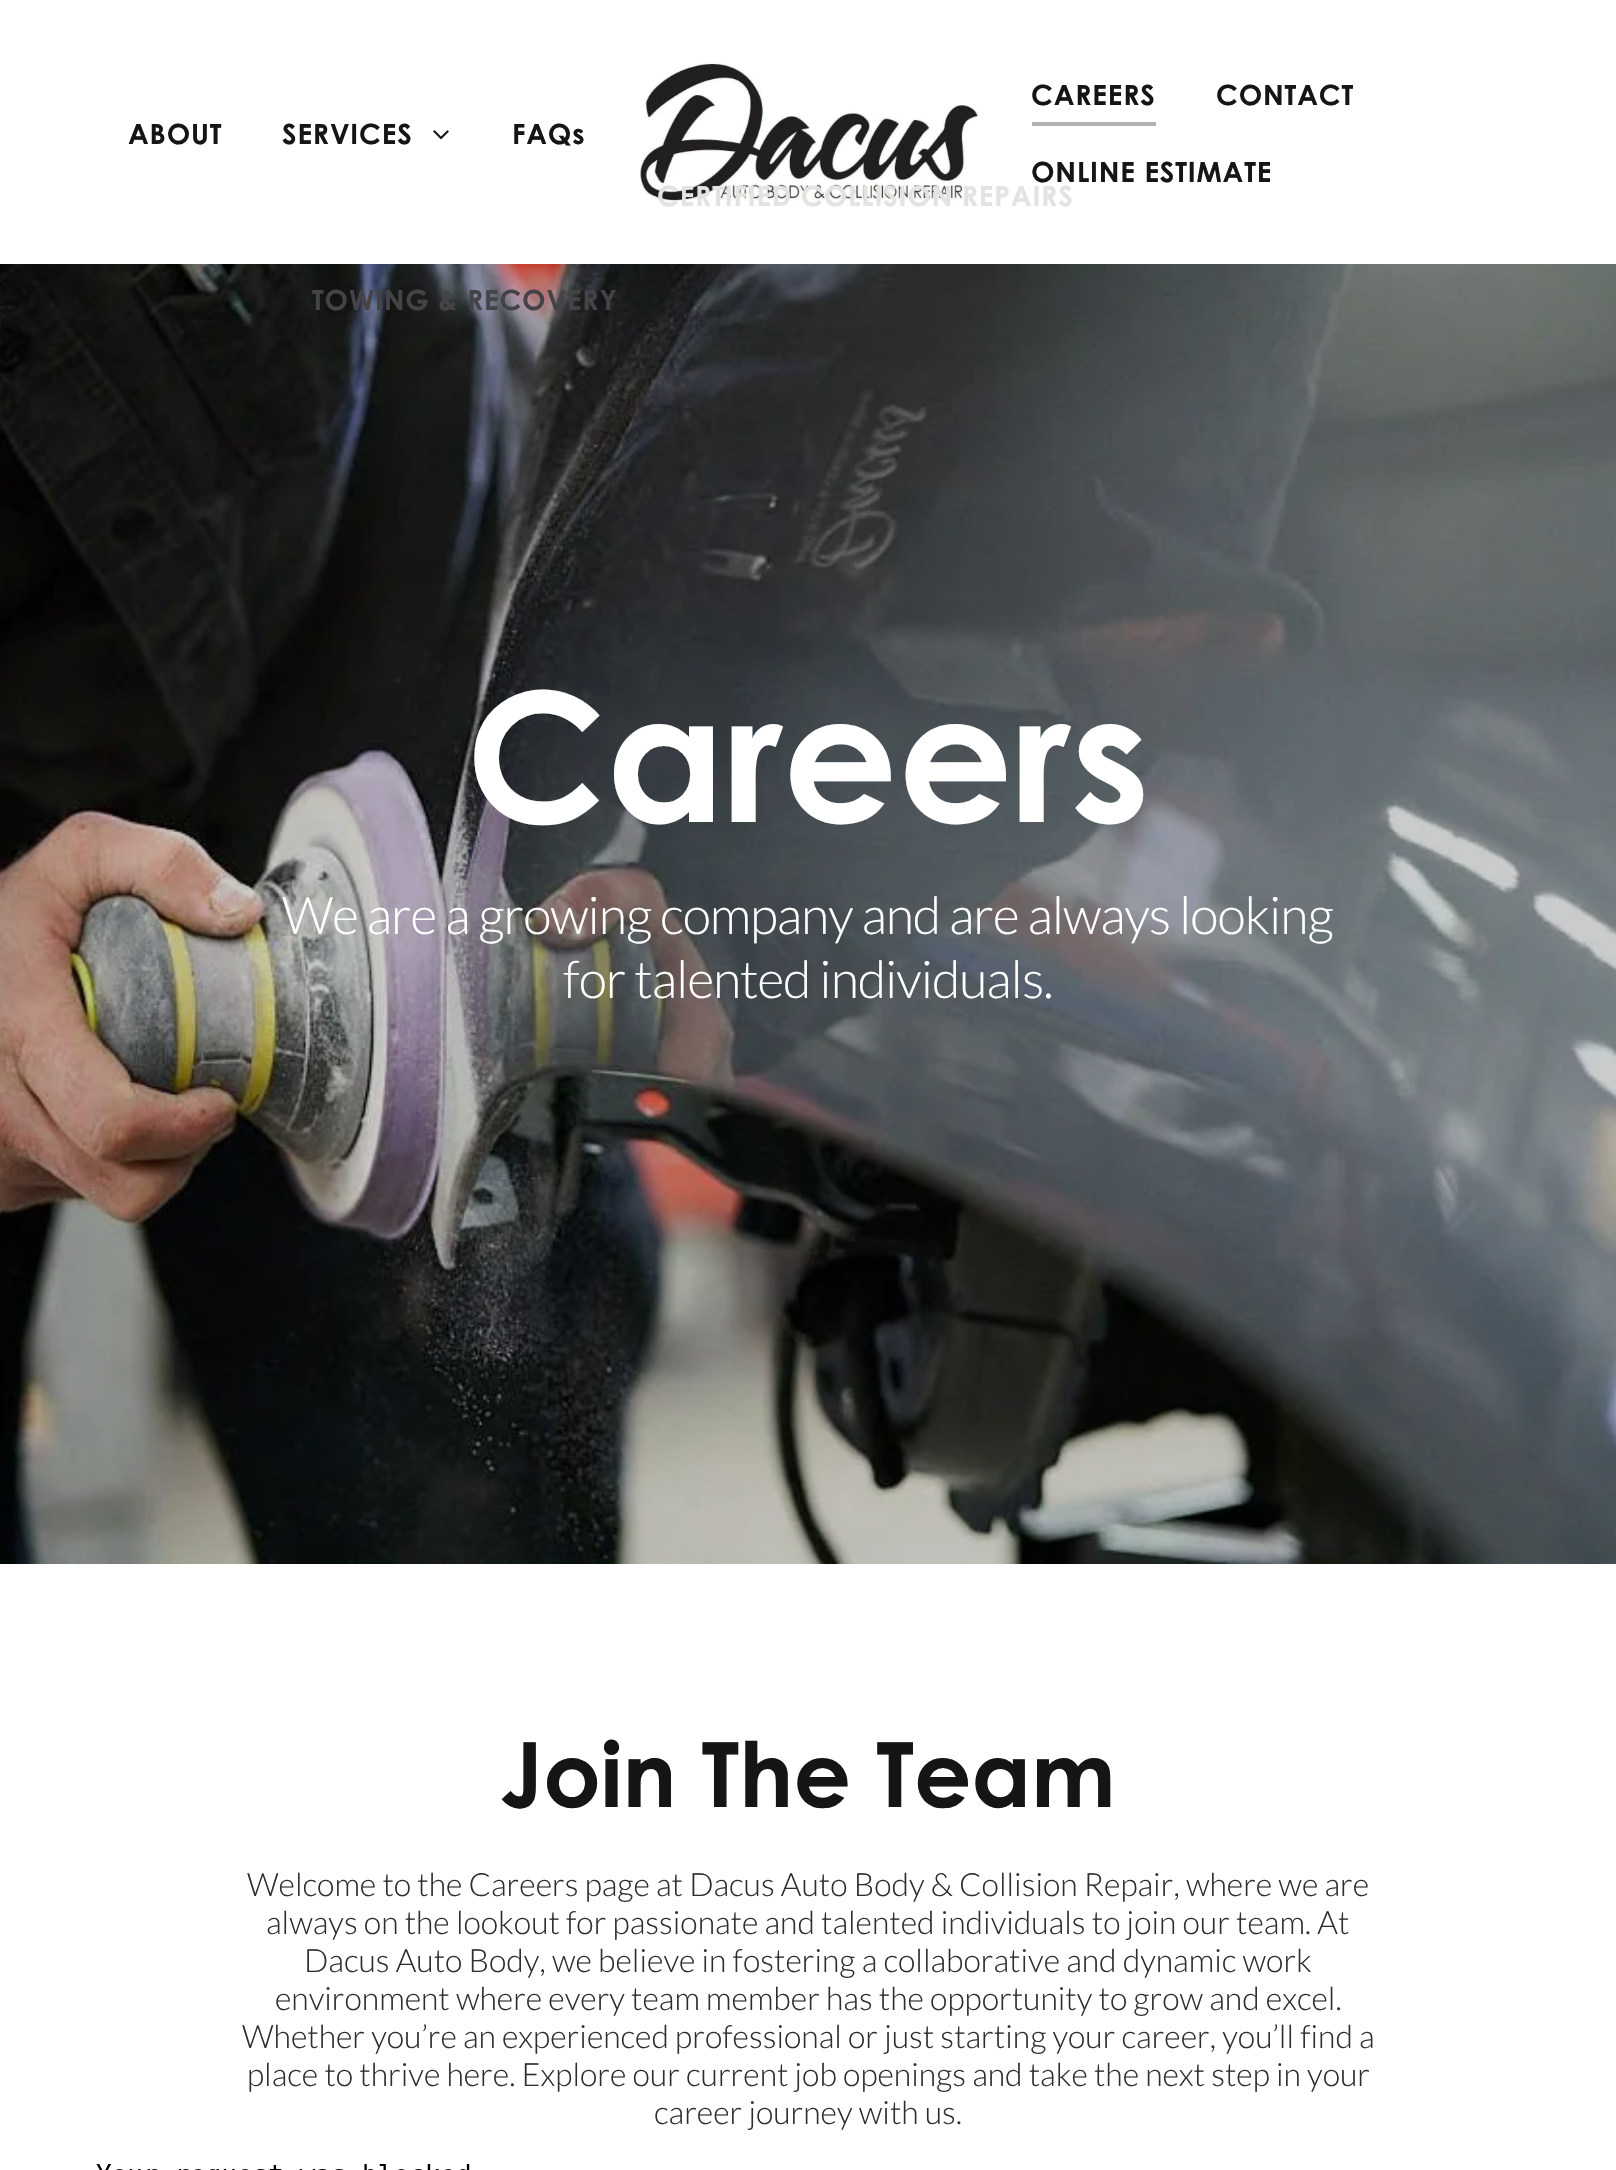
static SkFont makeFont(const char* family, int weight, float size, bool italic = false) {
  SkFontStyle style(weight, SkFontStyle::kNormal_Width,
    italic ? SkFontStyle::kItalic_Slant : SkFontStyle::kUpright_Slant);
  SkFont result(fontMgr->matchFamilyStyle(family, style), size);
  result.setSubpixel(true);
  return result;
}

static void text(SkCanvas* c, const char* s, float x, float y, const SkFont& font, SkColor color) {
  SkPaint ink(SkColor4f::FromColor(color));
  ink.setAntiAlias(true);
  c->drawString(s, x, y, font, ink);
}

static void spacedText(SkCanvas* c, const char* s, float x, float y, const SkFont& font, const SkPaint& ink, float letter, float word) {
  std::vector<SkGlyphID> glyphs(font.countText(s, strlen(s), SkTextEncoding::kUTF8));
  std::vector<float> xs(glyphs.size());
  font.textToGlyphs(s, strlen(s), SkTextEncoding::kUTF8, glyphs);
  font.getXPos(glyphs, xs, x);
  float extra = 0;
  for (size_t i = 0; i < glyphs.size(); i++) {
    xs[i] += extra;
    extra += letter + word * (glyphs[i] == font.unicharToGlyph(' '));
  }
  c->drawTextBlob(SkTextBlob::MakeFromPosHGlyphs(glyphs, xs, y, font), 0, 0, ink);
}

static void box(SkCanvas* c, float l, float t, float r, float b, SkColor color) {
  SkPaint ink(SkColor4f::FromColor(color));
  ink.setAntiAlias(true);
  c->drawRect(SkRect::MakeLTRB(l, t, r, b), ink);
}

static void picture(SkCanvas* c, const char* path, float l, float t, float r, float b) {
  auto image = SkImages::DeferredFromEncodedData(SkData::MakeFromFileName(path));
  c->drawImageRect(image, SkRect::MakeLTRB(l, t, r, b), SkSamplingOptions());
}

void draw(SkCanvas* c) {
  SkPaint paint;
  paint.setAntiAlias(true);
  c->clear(0xffffffff);
  picture(c, "img_01.png", 640, 62, 980, 201);
  SkFont face1 = makeFont("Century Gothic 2", 700, 28);
  paint.setColor(0xff161414);
  spacedText(c, "CAREERS", 1031, 105, face1, paint, 0.85f, 0);
  box(c, 1032, 122, 1156, 126, 0xffb4b2b3);
  spacedText(c, "CONTACT", 1216, 105, face1, paint, 0.85f, 0);
  spacedText(c, "ONLINE ESTIMATE", 1031, 182, face1, paint, 0.85f, 0);
  spacedText(c, "ABOUT", 128, 144, face1, paint, 0.85f, 0);
  spacedText(c, "SERVICES", 282, 144, face1, paint, 0.85f, 0);
  picture(c, "img_02.png", 433, 130, 449, 140);
  paint.setColor(0xffe3e3e2);
  spacedText(c, "CERTIFIED COLLISION REPAIRS", 657, 206, face1, paint, 0.85f, 0);
  picture(c, "img_03.png", 0, 264, 1616, 1564);
  paint.setColor(0xff454248);
  spacedText(c, "TOWING & RECOVERY", 312, 310, face1, paint, 0.85f, 0);
  paint.setColor(0xff161414);
  spacedText(c, "FAQs", 512, 144, face1, paint, 0.85f, 0);
  SkFont face2 = makeFont("Century Gothic", 700, 180);
  text(c, "Careers", 466, 822, face2, 0xffffffff);
  SkFont face3 = makeFont("Lato", 300, 52);
  paint.setColor(0xffffffff);
  spacedText(c, "We are a growing company and are always looking", 282, 934, face3, paint, -1.05f, 0);
  spacedText(c, "for talented individuals.", 563, 998, face3, paint, -1.05f, 0);
  SkFont face4 = makeFont("Century Gothic 2", 700, 90);
  text(c, "Join The Team", 500, 1807, face4, 0xff161414);
  SkFont face5 = makeFont("Lato", 300, 32);
  text(c, "Welcome to the Careers page at Dacus Auto Body & Collision Repair, where we are", 247, 1896, face5, 0xff2d2e32);
  text(c, "always on the lookout for passionate and talented individuals to join our team. At", 266, 1934, face5, 0xff2d2e32);
  text(c, "Dacus Auto Body, we believe in fostering a collaborative and dynamic work", 304, 1972, face5, 0xff2d2e32);
  text(c, "environment where every team member has the opportunity to grow and excel.", 275, 2010, face5, 0xff2d2e32);
  text(c, "Whether you’re an experienced professional or just starting your career, you’ll find a", 242, 2048, face5, 0xff2d2e32);
  text(c, "place to thrive here. Explore our current job openings and take the next step in your", 247, 2086, face5, 0xff2d2e32);
  text(c, "career journey with us.", 654, 2124, face5, 0xff2d2e32);
  picture(c, "img_04.png", 96, 2164, 470, 2170);
}
